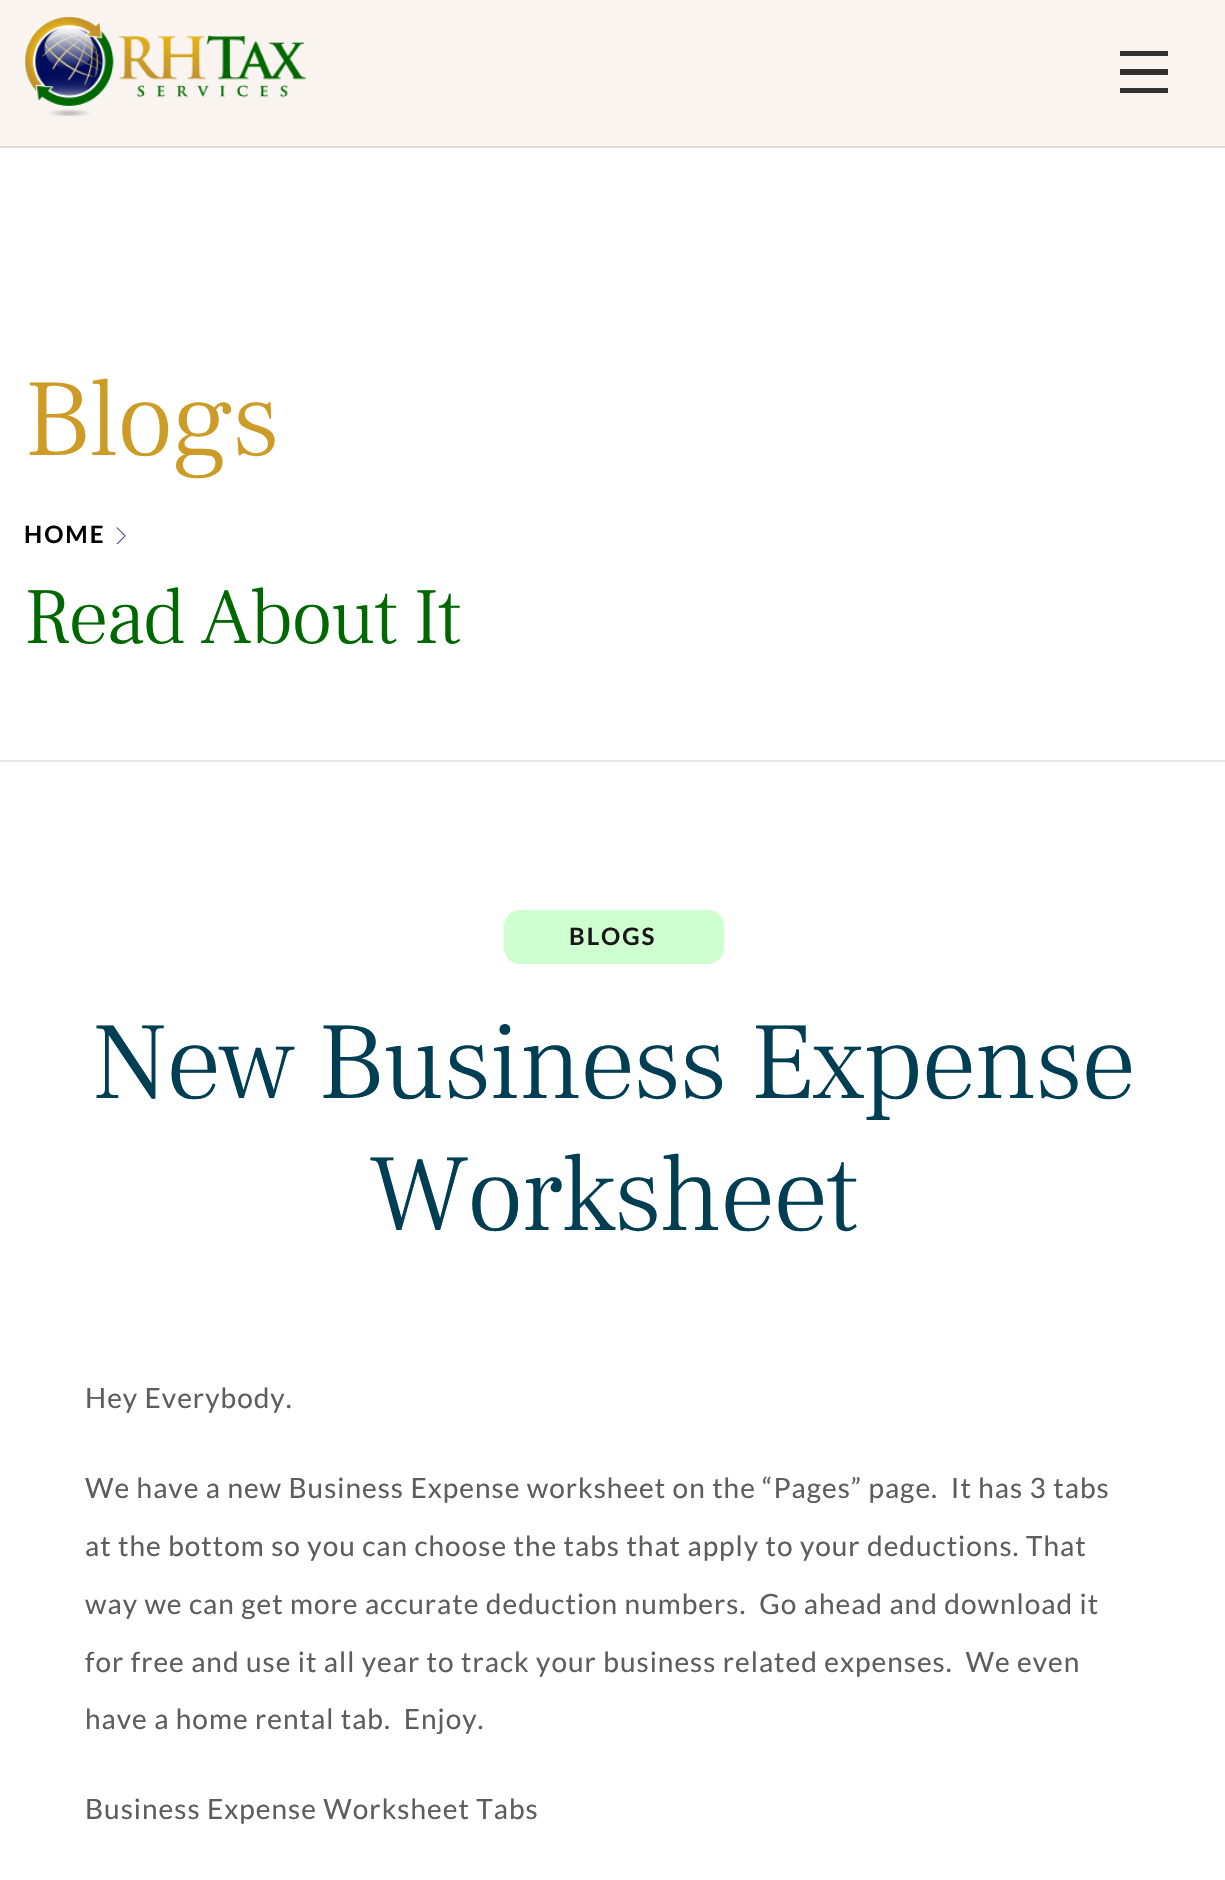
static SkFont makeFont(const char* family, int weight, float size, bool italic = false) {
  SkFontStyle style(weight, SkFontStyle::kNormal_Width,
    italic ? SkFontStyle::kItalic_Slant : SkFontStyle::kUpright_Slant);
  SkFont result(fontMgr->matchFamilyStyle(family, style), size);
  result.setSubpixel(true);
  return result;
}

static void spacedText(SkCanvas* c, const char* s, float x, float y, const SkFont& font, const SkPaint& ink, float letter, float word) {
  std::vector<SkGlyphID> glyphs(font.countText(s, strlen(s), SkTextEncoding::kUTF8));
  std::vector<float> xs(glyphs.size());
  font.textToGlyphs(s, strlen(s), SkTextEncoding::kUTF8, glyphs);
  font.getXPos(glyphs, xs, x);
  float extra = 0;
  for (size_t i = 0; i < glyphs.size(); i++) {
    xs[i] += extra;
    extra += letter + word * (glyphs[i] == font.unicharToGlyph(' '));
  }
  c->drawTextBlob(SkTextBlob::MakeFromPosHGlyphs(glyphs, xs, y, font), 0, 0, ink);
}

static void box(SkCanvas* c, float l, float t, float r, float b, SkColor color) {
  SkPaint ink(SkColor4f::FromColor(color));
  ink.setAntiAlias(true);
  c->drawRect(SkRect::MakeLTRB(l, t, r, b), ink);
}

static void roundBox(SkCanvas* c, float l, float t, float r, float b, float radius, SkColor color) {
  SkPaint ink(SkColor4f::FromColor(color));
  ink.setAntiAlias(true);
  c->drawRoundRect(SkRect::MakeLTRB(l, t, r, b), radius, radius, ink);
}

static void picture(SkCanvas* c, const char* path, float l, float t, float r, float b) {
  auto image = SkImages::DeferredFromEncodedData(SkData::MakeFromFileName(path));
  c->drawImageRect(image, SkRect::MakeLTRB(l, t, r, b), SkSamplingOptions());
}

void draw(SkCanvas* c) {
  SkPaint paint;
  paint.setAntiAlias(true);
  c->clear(0xffffffff);
  box(c, 0, 0, 1225, 146, 0xfff9f4f0);
  box(c, 0, 146, 1225, 148, 0xffe1ddda);
  picture(c, "img_01.png", 24, 16, 306, 116);
  paint.setColor(0xff323130);
  c->drawPath(SkPathBuilder().moveTo(1120, 51).lineTo(1168, 51).lineTo(1168, 56).lineTo(1120, 56).close().moveTo(1120, 69).lineTo(1168, 69).lineTo(1168, 75).lineTo(1120, 75).close().moveTo(1120, 88).lineTo(1168, 88).lineTo(1168, 93).lineTo(1120, 93).close().detach(), paint);
  box(c, 0, 760, 1225, 762, 0xffe6e6e6);
  SkFont face1 = makeFont("Frank Ruhl Libre", 300, 110);
  paint.setColor(0xffcd9c26);
  spacedText(c, "Blogs", 24, 455, face1, paint, -2, 0);
  SkFont face2 = makeFont("Lato", 700, 24);
  paint.setColor(0xff000000);
  spacedText(c, "HOME", 24, 543, face2, paint, 2, 0);
  picture(c, "img_02.png", 116, 527, 126, 544);
  SkFont face3 = makeFont("Frank Ruhl Libre", 300, 80);
  paint.setColor(0xff006800);
  spacedText(c, "Read About It", 24, 643, face3, paint, -2, 0);
  roundBox(c, 504, 910, 724, 964, 16, 0xffcfffd1);
  paint.setColor(0xff1a1818);
  spacedText(c, "BLOGS", 569, 945, face2, paint, 2, 0);
  paint.setColor(0xff003e54);
  spacedText(c, "New Business Expense", 92, 1098, face1, paint, -2, 0);
  spacedText(c, "Worksheet", 369, 1230, face1, paint, -2, 0);
  SkFont face4 = makeFont("Lato", 400, 28);
  paint.setColor(0xff5d5d5d);
  spacedText(c, "Hey Everybody.", 85, 1408, face4, paint, 1, 0);
  spacedText(c, "We have a new Business Expense worksheet on the “Pages” page.  It has 3 tabs", 85, 1498, face4, paint, 1, 0);
  spacedText(c, "at the bottom so you can choose the tabs that apply to your deductions. That", 85, 1556, face4, paint, 1, 0);
  spacedText(c, "way we can get more accurate deduction numbers.  Go ahead and download it", 85, 1614, face4, paint, 1, 0);
  spacedText(c, "for free and use it all year to track your business related expenses.  We even", 85, 1672, face4, paint, 1, 0);
  spacedText(c, "have a home rental tab.  Enjoy.", 85, 1729, face4, paint, 1, 0);
  spacedText(c, "Business Expense Worksheet Tabs", 85, 1819, face4, paint, 1, 0);
}
